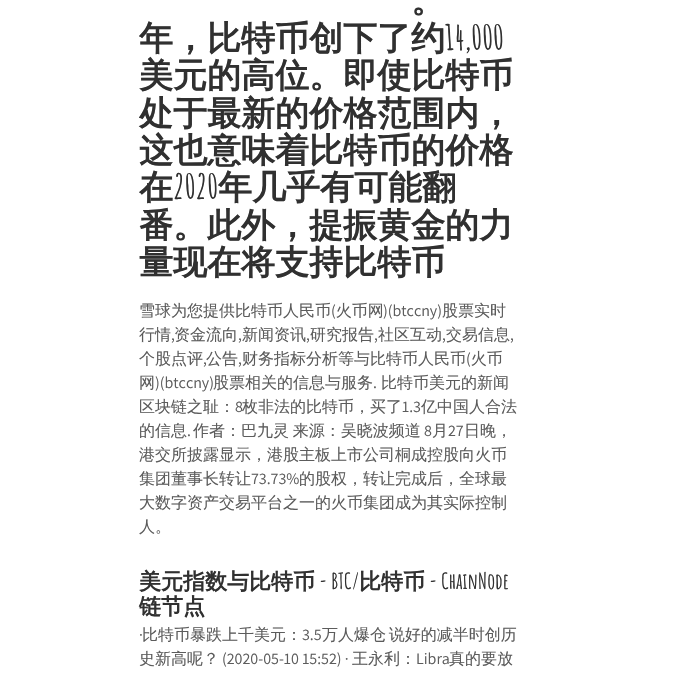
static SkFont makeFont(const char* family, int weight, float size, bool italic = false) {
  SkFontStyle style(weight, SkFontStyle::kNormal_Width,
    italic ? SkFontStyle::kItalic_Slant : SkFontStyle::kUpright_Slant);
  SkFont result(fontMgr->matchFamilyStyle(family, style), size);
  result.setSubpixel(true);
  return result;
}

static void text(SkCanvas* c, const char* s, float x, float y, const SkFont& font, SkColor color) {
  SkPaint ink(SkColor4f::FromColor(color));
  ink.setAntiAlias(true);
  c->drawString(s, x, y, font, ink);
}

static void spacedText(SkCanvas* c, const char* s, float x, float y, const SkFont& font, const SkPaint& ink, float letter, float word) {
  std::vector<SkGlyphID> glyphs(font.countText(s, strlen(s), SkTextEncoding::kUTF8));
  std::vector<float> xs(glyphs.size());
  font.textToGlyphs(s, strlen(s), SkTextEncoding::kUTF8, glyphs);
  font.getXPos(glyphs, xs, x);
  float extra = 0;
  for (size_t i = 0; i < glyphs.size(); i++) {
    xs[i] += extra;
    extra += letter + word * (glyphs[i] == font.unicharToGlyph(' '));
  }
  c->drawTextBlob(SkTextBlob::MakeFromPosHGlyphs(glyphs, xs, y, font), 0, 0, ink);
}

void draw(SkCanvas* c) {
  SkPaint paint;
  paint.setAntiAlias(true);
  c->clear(0xffffffff);
  SkFont face1 = makeFont("WenQuanYi Zen Hei", 700, 34);
  text(c, "。", 411, 12, face1, 0xff303030);
  text(c, "年，比特币创下了约", 139, 50, face1, 0xff303030);
  SkFont face2 = makeFont("Amatic SC", 700, 34);
  text(c, "14,000", 445, 50, face2, 0xff303030);
  text(c, "美元的高位。即使比特币", 139, 87, face1, 0xff303030);
  text(c, "处于最新的价格范围内，", 139, 125, face1, 0xff303030);
  text(c, "这也意味着比特币的价格", 139, 162, face1, 0xff303030);
  text(c, "在", 139, 199, face1, 0xff303030);
  text(c, "2020", 173, 199, face2, 0xff303030);
  text(c, "年几乎有可能翻", 218, 199, face1, 0xff303030);
  text(c, "番。此外，提振黄金的力", 139, 237, face1, 0xff303030);
  text(c, "量现在将支持比特币", 139, 274, face1, 0xff303030);
  SkFont face3 = makeFont("WenQuanYi Zen Hei", 500, 16);
  text(c, "雪球为您提供比特币人民币 火币网", 139, 316, face3, 0xff5c5c5c);
  text(c, "股票实时", 442, 316, face3, 0xff5c5c5c);
  SkFont face4 = makeFont("Assistant", 400, 16);
  text(c, "(", 331, 316, face4, 0xff5c5c5c);
  text(c, ")(btccny)", 383, 316, face4, 0xff5c5c5c);
  text(c, "行情", 139, 340, face3, 0xff5c5c5c);
  text(c, ",", 171, 340, face4, 0xff5c5c5c);
  text(c, "资金流向", 174, 340, face3, 0xff5c5c5c);
  text(c, ",", 238, 340, face4, 0xff5c5c5c);
  text(c, "新闻资讯", 242, 340, face3, 0xff5c5c5c);
  text(c, ",", 306, 340, face4, 0xff5c5c5c);
  text(c, "研究报告", 310, 340, face3, 0xff5c5c5c);
  text(c, ",", 374, 340, face4, 0xff5c5c5c);
  text(c, "社区互动", 378, 340, face3, 0xff5c5c5c);
  text(c, ",", 442, 340, face4, 0xff5c5c5c);
  text(c, "交易信息", 446, 340, face3, 0xff5c5c5c);
  text(c, ",", 510, 340, face4, 0xff5c5c5c);
  text(c, "个股点评", 139, 364, face3, 0xff5c5c5c);
  text(c, "公告", 206, 364, face3, 0xff5c5c5c);
  text(c, "财务指标分析等与比特币人民币 火币", 242, 364, face3, 0xff5c5c5c);
  text(c, ",", 203, 364, face4, 0xff5c5c5c);
  text(c, ",", 238, 364, face4, 0xff5c5c5c);
  text(c, "(", 466, 364, face4, 0xff5c5c5c);
  text(c, "网", 139, 388, face3, 0xff5c5c5c);
  text(c, ")(btccny)", 155, 388, face4, 0xff5c5c5c);
  text(c, "股票相关的信息与服务", 213, 388, face3, 0xff5c5c5c);
  text(c, ".", 373, 388, face4, 0xff5c5c5c);
  text(c, "比特币美元的新闻", 381, 388, face3, 0xff5c5c5c);
  text(c, "区块链之耻：", 139, 412, face3, 0xff5c5c5c);
  text(c, "8", 235, 412, face4, 0xff5c5c5c);
  text(c, "枚非法的比特币，买了", 242, 412, face3, 0xff5c5c5c);
  text(c, "1.3", 402, 412, face4, 0xff5c5c5c);
  text(c, "亿中国人合法", 421, 412, face3, 0xff5c5c5c);
  text(c, "的信息", 139, 436, face3, 0xff5c5c5c);
  text(c, ".", 187, 436, face4, 0xff5c5c5c);
  paint.setColor(0xff5c5c5c);
  spacedText(c, "作者：巴九灵 来源：吴晓波频道", 193, 436, face3, paint, 0, -1);
  text(c, "8", 424, 436, face4, 0xff5c5c5c);
  text(c, "月", 432, 436, face3, 0xff5c5c5c);
  text(c, "27", 448, 436, face4, 0xff5c5c5c);
  text(c, "日晚，", 464, 436, face3, 0xff5c5c5c);
  text(c, "港交所披露显示，港股主板上市公司桐成控股向火币", 139, 460, face3, 0xff5c5c5c);
  text(c, "集团董事长转让", 139, 484, face3, 0xff5c5c5c);
  text(c, "73.73%", 251, 484, face4, 0xff5c5c5c);
  text(c, "的股权，转让完成后，全球最", 299, 484, face3, 0xff5c5c5c);
  text(c, "大数字资产交易平台之一的火币集团成为其实际控制", 139, 508, face3, 0xff5c5c5c);
  text(c, "人。", 139, 532, face3, 0xff5c5c5c);
  SkFont face5 = makeFont("WenQuanYi Zen Hei", 700, 22);
  text(c, "美元指数与比特币", 139, 589, face5, 0xff303030);
  SkFont face6 = makeFont("Amatic SC", 700, 22);
  text(c, "- BTC/", 319, 589, face6, 0xff303030);
  text(c, "比特币", 359, 589, face5, 0xff303030);
  text(c, "- ChainNode", 429, 589, face6, 0xff303030);
  text(c, "链节点", 139, 614, face5, 0xff303030);
  text(c, "·", 139, 640, face4, 0xff5c5c5c);
  text(c, "比特币暴跌上千美元：", 142, 640, face3, 0xff5c5c5c);
  text(c, "3.5", 302, 640, face4, 0xff5c5c5c);
  spacedText(c, "万人爆仓 说好的减半时创历", 322, 640, face3, paint, 0, -2);
  text(c, "史新高呢？", 139, 664, face3, 0xff5c5c5c);
  text(c, "(2020-05-10 15:52) ·", 222, 664, face4, 0xff5c5c5c);
  text(c, "王永利：", 352, 664, face3, 0xff5c5c5c);
  text(c, "Libra", 416, 664, face4, 0xff5c5c5c);
  text(c, "真的要放", 449, 664, face3, 0xff5c5c5c);
}
